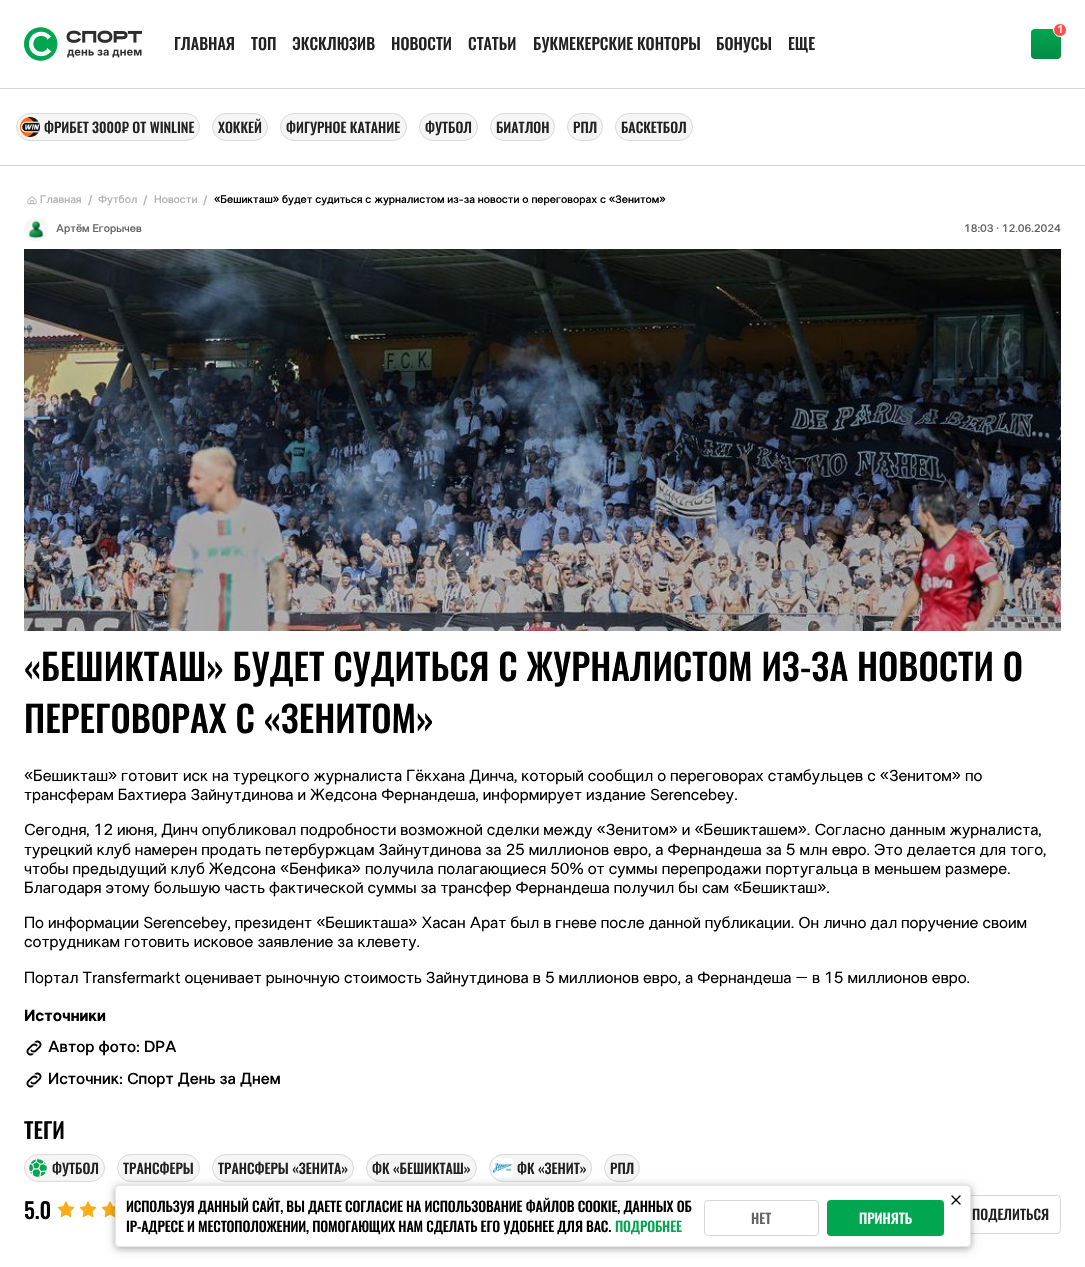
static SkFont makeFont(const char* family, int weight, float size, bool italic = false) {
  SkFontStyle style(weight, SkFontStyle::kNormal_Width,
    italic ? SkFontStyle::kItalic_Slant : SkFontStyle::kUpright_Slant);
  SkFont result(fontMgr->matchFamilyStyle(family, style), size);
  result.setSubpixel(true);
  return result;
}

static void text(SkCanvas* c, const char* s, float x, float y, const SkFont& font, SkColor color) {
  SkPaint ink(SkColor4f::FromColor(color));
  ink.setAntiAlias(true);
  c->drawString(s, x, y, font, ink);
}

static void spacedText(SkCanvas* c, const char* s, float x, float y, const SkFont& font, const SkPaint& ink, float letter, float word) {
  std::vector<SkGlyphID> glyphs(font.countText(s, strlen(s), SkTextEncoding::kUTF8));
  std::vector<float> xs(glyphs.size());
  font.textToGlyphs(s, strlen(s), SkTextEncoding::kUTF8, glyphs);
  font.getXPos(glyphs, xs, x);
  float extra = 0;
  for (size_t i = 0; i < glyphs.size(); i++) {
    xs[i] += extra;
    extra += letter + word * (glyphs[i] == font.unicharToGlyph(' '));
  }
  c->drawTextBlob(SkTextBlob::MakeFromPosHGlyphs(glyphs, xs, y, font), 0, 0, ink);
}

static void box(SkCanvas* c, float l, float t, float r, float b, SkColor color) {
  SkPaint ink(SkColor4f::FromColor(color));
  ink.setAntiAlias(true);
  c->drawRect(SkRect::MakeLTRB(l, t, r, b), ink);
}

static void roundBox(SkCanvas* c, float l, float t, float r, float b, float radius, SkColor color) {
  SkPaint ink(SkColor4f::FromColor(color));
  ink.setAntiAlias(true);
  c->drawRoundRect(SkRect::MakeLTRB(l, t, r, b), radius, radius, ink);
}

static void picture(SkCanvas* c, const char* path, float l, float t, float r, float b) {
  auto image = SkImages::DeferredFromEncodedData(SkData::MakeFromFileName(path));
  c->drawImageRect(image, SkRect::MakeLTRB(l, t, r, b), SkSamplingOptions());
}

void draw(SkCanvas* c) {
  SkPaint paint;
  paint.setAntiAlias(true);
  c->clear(0xffffffff);
  box(c, 0, 88, 1085, 89, 0xffd8d8d8);
  {
    const SkColor colors[] = {0xff00a650, 0xff008c44};
    const float stops[] = {0, 1};
    const SkPoint ends[] = {{1046, 29}, {1046, 59}};
    paint.setShader(SkGradientShader::MakeLinear(ends, colors, stops, 2, SkTileMode::kClamp));
    paint.setAlpha(255);
  }
  c->drawRoundRect(SkRect::MakeLTRB(1031, 29, 1061, 59), 4, 4, paint);
  paint.setShader(nullptr);
  paint.setColor(0xffff4d4f);
  c->drawCircle(1060, 30, 6.5f, paint);
  paint.setStyle(SkPaint::kStroke_Style);
  paint.setStrokeWidth(1);
  paint.setColor(0xffffffff);
  c->drawCircle(1060, 30, 6.5f, paint);
  SkFont face1 = makeFont("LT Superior", 600, 11);
  text(c, "1", 1057, 33, face1, 0xffffffff);
  picture(c, "img_01.png", 24, 27, 142, 61);
  SkFont face2 = makeFont("Oswald", 500, 16);
  text(c, "ГЛАВНАЯ", 174, 50, face2, 0xff222222);
  text(c, "ТОП", 251, 50, face2, 0xff222222);
  text(c, "ЭКСКЛЮЗИВ", 292, 50, face2, 0xff222222);
  text(c, "НОВОСТИ", 391, 50, face2, 0xff222222);
  text(c, "СТАТЬИ", 468, 50, face2, 0xff222222);
  text(c, "БУКМЕКЕРСКИЕ КОНТОРЫ", 533, 50, face2, 0xff222222);
  text(c, "БОНУСЫ", 716, 50, face2, 0xff222222);
  text(c, "ЕЩЕ", 788, 50, face2, 0xff222222);
  box(c, 0, 165, 1085, 166, 0xffd8d8d8);
  paint.setStyle(SkPaint::kFill_Style);
  paint.setColor(0xfff5f5f5);
  c->drawRoundRect(SkRect::MakeLTRB(16.5f, 113.5f, 199.5f, 140.5f), 13.5f, 13.5f, paint);
  paint.setStyle(SkPaint::kStroke_Style);
  paint.setColor(0xffd9d9d9);
  c->drawRoundRect(SkRect::MakeLTRB(16.5f, 113.5f, 199.5f, 140.5f), 13.5f, 13.5f, paint);
  picture(c, "img_02.png", 20, 117, 40, 137);
  SkFont face3 = makeFont("Oswald", 500, 14);
  text(c, "ФРИБЕТ 3000₽ ОТ WINLINE", 44, 133, face3, 0xff222222);
  paint.setStyle(SkPaint::kFill_Style);
  paint.setColor(0xfff5f5f5);
  c->drawRoundRect(SkRect::MakeLTRB(212.5f, 113.5f, 267.5f, 140.5f), 13.5f, 13.5f, paint);
  paint.setStyle(SkPaint::kStroke_Style);
  paint.setColor(0xffd9d9d9);
  c->drawRoundRect(SkRect::MakeLTRB(212.5f, 113.5f, 267.5f, 140.5f), 13.5f, 13.5f, paint);
  text(c, "ХОККЕЙ", 218, 133, face3, 0xff222222);
  paint.setStyle(SkPaint::kFill_Style);
  paint.setColor(0xfff5f5f5);
  c->drawRoundRect(SkRect::MakeLTRB(280.5f, 113.5f, 406.5f, 140.5f), 13.5f, 13.5f, paint);
  paint.setStyle(SkPaint::kStroke_Style);
  paint.setColor(0xffd9d9d9);
  c->drawRoundRect(SkRect::MakeLTRB(280.5f, 113.5f, 406.5f, 140.5f), 13.5f, 13.5f, paint);
  text(c, "ФИГУРНОЕ КАТАНИЕ", 286, 133, face3, 0xff222222);
  paint.setStyle(SkPaint::kFill_Style);
  paint.setColor(0xfff5f5f5);
  c->drawRoundRect(SkRect::MakeLTRB(419.5f, 113.5f, 477.5f, 140.5f), 13.5f, 13.5f, paint);
  paint.setStyle(SkPaint::kStroke_Style);
  paint.setColor(0xffd9d9d9);
  c->drawRoundRect(SkRect::MakeLTRB(419.5f, 113.5f, 477.5f, 140.5f), 13.5f, 13.5f, paint);
  text(c, "ФУТБОЛ", 425, 133, face3, 0xff222222);
  paint.setStyle(SkPaint::kFill_Style);
  paint.setColor(0xfff5f5f5);
  c->drawRoundRect(SkRect::MakeLTRB(490.5f, 113.5f, 554.5f, 140.5f), 13.5f, 13.5f, paint);
  paint.setStyle(SkPaint::kStroke_Style);
  paint.setColor(0xffd9d9d9);
  c->drawRoundRect(SkRect::MakeLTRB(490.5f, 113.5f, 554.5f, 140.5f), 13.5f, 13.5f, paint);
  text(c, "БИАТЛОН", 496, 133, face3, 0xff222222);
  paint.setStyle(SkPaint::kFill_Style);
  paint.setColor(0xfff5f5f5);
  c->drawRoundRect(SkRect::MakeLTRB(567.5f, 113.5f, 602.5f, 140.5f), 13.5f, 13.5f, paint);
  paint.setStyle(SkPaint::kStroke_Style);
  paint.setColor(0xffd9d9d9);
  c->drawRoundRect(SkRect::MakeLTRB(567.5f, 113.5f, 602.5f, 140.5f), 13.5f, 13.5f, paint);
  text(c, "РПЛ", 573, 133, face3, 0xff222222);
  paint.setStyle(SkPaint::kFill_Style);
  paint.setColor(0xfff5f5f5);
  c->drawRoundRect(SkRect::MakeLTRB(615.5f, 113.5f, 692.5f, 140.5f), 13.5f, 13.5f, paint);
  paint.setStyle(SkPaint::kStroke_Style);
  paint.setColor(0xffd9d9d9);
  c->drawRoundRect(SkRect::MakeLTRB(615.5f, 113.5f, 692.5f, 140.5f), 13.5f, 13.5f, paint);
  text(c, "БАСКЕТБОЛ", 621, 133, face3, 0xff222222);
  picture(c, "img_03.png", 27, 196, 37, 205);
  text(c, "Главная", 40, 203, face1, 0xffb1b3b4);
  text(c, "/", 88, 203, face1, 0xffb1b3b4);
  text(c, "Футбол", 98, 203, face1, 0xffb1b3b4);
  text(c, "/", 143, 203, face1, 0xffb1b3b4);
  text(c, "Новости", 154, 203, face1, 0xffb1b3b4);
  text(c, "/", 203, 203, face1, 0xffb1b3b4);
  text(c, "«Бешикташ» будет судиться с журналистом из-за новости о переговорах с «Зенитом»", 214, 203, face1, 0xff000000);
  picture(c, "img_04.png", 24, 217, 48, 241);
  text(c, "Артём Егорычев", 56, 232, face1, 0xff636363);
  text(c, "18:03 · 12.06.2024", 964, 232, face1, 0xff636363);
  picture(c, "img_05.png", 24, 249, 1061, 631);
  SkFont face4 = makeFont("Oswald", 500, 36);
  text(c, "«БЕШИКТАШ» БУДЕТ СУДИТЬСЯ С ЖУРНАЛИСТОМ ИЗ-ЗА НОВОСТИ О", 24, 681, face4, 0xff000000);
  text(c, "ПЕРЕГОВОРАХ С «ЗЕНИТОМ»", 24, 733, face4, 0xff000000);
  SkFont face5 = makeFont("LT Superior", 500, 16);
  text(c, "«Бешикташ» готовит иск на турецкого журналиста Гёкхана Динча, который сообщил о переговорах стамбульцев с «Зенитом» по", 24, 781, face5, 0xff000000);
  text(c, "трансферам Бахтиера Зайнутдинова и Жедсона Фернандеша, информирует издание Serencebey.", 24, 800, face5, 0xff000000);
  text(c, "Сегодня, 12 июня, Динч опубликовал подробности возможной сделки между «Зенитом» и «Бешикташем». Согласно данным журналиста,", 24, 835, face5, 0xff000000);
  text(c, "турецкий клуб намерен продать петербуржцам Зайнутдинова за 25 миллионов евро, а Фернандеша за 5 млн евро. Это делается для того,", 24, 855, face5, 0xff000000);
  text(c, "чтобы предыдущий клуб Жедсона «Бенфика» получила полагающиеся 50% от суммы перепродажи португальца в меньшем размере.", 24, 874, face5, 0xff000000);
  text(c, "Благодаря этому большую часть фактической суммы за трансфер Фернандеша получил бы сам «Бешикташ».", 24, 893, face5, 0xff000000);
  text(c, "По информации Serencebey, президент «Бешикташа» Хасан Арат был в гневе после данной публикации. Он лично дал поручение своим", 24, 928, face5, 0xff000000);
  text(c, "сотрудникам готовить исковое заявление за клевету.", 24, 947, face5, 0xff000000);
  text(c, "Портал Transfermarkt оценивает рыночную стоимость Зайнутдинова в 5 миллионов евро, а Фернандеша – в 15 миллионов евро.", 24, 983, face5, 0xff000000);
  SkFont face6 = makeFont("LT Superior", 700, 16);
  text(c, "Источники", 24, 1021, face6, 0xff000000);
  picture(c, "img_06.png", 26, 1040, 42, 1056);
  SkFont face7 = makeFont("LT Superior", 600, 16);
  text(c, "Автор фото: DPA", 48, 1052, face7, 0xff000000);
  picture(c, "img_06.png", 26, 1072, 42, 1088);
  text(c, "Источник: Спорт День за Днем", 48, 1084, face7, 0xff000000);
  SkFont face8 = makeFont("Oswald", 500, 22);
  text(c, "ТЕГИ", 24, 1139, face8, 0xff000000);
  paint.setStyle(SkPaint::kFill_Style);
  paint.setColor(0xfff5f5f5);
  c->drawRoundRect(SkRect::MakeLTRB(24.5f, 1154.5f, 104.5f, 1181.5f), 13.5f, 13.5f, paint);
  paint.setStyle(SkPaint::kStroke_Style);
  paint.setColor(0xffd9d9d9);
  c->drawRoundRect(SkRect::MakeLTRB(24.5f, 1154.5f, 104.5f, 1181.5f), 13.5f, 13.5f, paint);
  picture(c, "img_07.png", 29, 1159, 47, 1177);
  text(c, "ФУТБОЛ", 52, 1174, face3, 0xff222222);
  paint.setStyle(SkPaint::kFill_Style);
  paint.setColor(0xfff5f5f5);
  c->drawRoundRect(SkRect::MakeLTRB(117.5f, 1154.5f, 199.5f, 1181.5f), 13.5f, 13.5f, paint);
  paint.setStyle(SkPaint::kStroke_Style);
  paint.setColor(0xffd9d9d9);
  c->drawRoundRect(SkRect::MakeLTRB(117.5f, 1154.5f, 199.5f, 1181.5f), 13.5f, 13.5f, paint);
  text(c, "ТРАНСФЕРЫ", 123, 1174, face3, 0xff222222);
  paint.setStyle(SkPaint::kFill_Style);
  paint.setColor(0xfff5f5f5);
  c->drawRoundRect(SkRect::MakeLTRB(212.5f, 1154.5f, 353.5f, 1181.5f), 13.5f, 13.5f, paint);
  paint.setStyle(SkPaint::kStroke_Style);
  paint.setColor(0xffd9d9d9);
  c->drawRoundRect(SkRect::MakeLTRB(212.5f, 1154.5f, 353.5f, 1181.5f), 13.5f, 13.5f, paint);
  text(c, "ТРАНСФЕРЫ «ЗЕНИТА»", 218, 1174, face3, 0xff222222);
  paint.setStyle(SkPaint::kFill_Style);
  paint.setColor(0xfff5f5f5);
  c->drawRoundRect(SkRect::MakeLTRB(366.5f, 1154.5f, 476.5f, 1181.5f), 13.5f, 13.5f, paint);
  paint.setStyle(SkPaint::kStroke_Style);
  paint.setColor(0xffd9d9d9);
  c->drawRoundRect(SkRect::MakeLTRB(366.5f, 1154.5f, 476.5f, 1181.5f), 13.5f, 13.5f, paint);
  text(c, "ФК «БЕШИКТАШ»", 372, 1174, face3, 0xff222222);
  paint.setStyle(SkPaint::kFill_Style);
  paint.setColor(0xfff5f5f5);
  c->drawRoundRect(SkRect::MakeLTRB(489.5f, 1154.5f, 591.5f, 1181.5f), 13.5f, 13.5f, paint);
  paint.setStyle(SkPaint::kStroke_Style);
  paint.setColor(0xffd9d9d9);
  c->drawRoundRect(SkRect::MakeLTRB(489.5f, 1154.5f, 591.5f, 1181.5f), 13.5f, 13.5f, paint);
  picture(c, "img_08.png", 493, 1158, 513, 1178);
  text(c, "ФК «ЗЕНИТ»", 517, 1174, face3, 0xff222222);
  paint.setStyle(SkPaint::kFill_Style);
  paint.setColor(0xfff5f5f5);
  c->drawRoundRect(SkRect::MakeLTRB(604.5f, 1154.5f, 639.5f, 1181.5f), 13.5f, 13.5f, paint);
  paint.setStyle(SkPaint::kStroke_Style);
  paint.setColor(0xffd9d9d9);
  c->drawRoundRect(SkRect::MakeLTRB(604.5f, 1154.5f, 639.5f, 1181.5f), 13.5f, 13.5f, paint);
  text(c, "РПЛ", 610, 1174, face3, 0xff222222);
  text(c, "5.0", 24, 1219, face8, 0xff000000);
  picture(c, "img_09.png", 57, 1201, 75, 1218);
  picture(c, "img_09.png", 79, 1201, 97, 1218);
  picture(c, "img_10.png", 101, 1201, 115, 1218);
  paint.setColor(0xffd8d8d8);
  c->drawRoundRect(SkRect::MakeLTRB(937.5f, 1195.5f, 1060.5f, 1233.5f), 3.5f, 3.5f, paint);
  text(c, "ПОДЕЛИТЬСЯ", 972, 1220, face3, 0xff222222);
  paint.setStyle(SkPaint::kFill_Style);
  paint.setColor(0x0d000000);
  paint.setMaskFilter(SkMaskFilter::MakeBlur(kNormal_SkBlurStyle, 4));
  c->drawRoundRect(SkRect::MakeLTRB(115, 1189, 971, 1251), 4, 4, paint);
  paint.setMaskFilter(nullptr);
  paint.setColor(0x33000000);
  paint.setMaskFilter(SkMaskFilter::MakeBlur(kNormal_SkBlurStyle, 3));
  c->drawRoundRect(SkRect::MakeLTRB(115, 1187, 971, 1249), 4, 4, paint);
  paint.setMaskFilter(nullptr);
  paint.setColor(0x1a000000);
  paint.setMaskFilter(SkMaskFilter::MakeBlur(kNormal_SkBlurStyle, 5));
  c->drawRoundRect(SkRect::MakeLTRB(115, 1185, 971, 1247), 4, 4, paint);
  paint.setMaskFilter(nullptr);
  roundBox(c, 115, 1185, 971, 1247, 4, 0xffffffff);
  paint.setStyle(SkPaint::kStroke_Style);
  c->drawRoundRect(SkRect::MakeLTRB(115.5f, 1185.5f, 970.5f, 1246.5f), 3.5f, 3.5f, paint);
  paint.setStyle(SkPaint::kFill_Style);
  paint.setColor(0xff000000);
  spacedText(c, "ИСПОЛЬЗУЯ ДАННЫЙ САЙТ, ВЫ ДАЕТЕ СОГЛАСИЕ НА ИСПОЛЬЗОВАНИЕ ФАЙЛОВ COOKIE, ДАННЫХ ОБ", 126, 1212, face3, paint, -0.15f, 0);
  spacedText(c, "IP-АДРЕСЕ И МЕСТОПОЛОЖЕНИИ, ПОМОГАЮЩИХ НАМ СДЕЛАТЬ ЕГО УДОБНЕЕ ДЛЯ ВАС.", 126, 1232, face3, paint, -0.15f, 0);
  paint.setColor(0xff00a650);
  spacedText(c, "ПОДРОБНЕЕ", 615, 1232, face3, paint, -0.15f, 0);
  paint.setStyle(SkPaint::kStroke_Style);
  paint.setColor(0xffd8d8d8);
  c->drawRoundRect(SkRect::MakeLTRB(704.5f, 1200.5f, 818.5f, 1235.5f), 3.5f, 3.5f, paint);
  text(c, "НЕТ", 751, 1224, face3, 0xff636363);
  roundBox(c, 827, 1200, 944, 1236, 4, 0xff00a650);
  text(c, "ПРИНЯТЬ", 859, 1224, face3, 0xffffffff);
  picture(c, "img_11.png", 951, 1195, 961, 1205);
}
